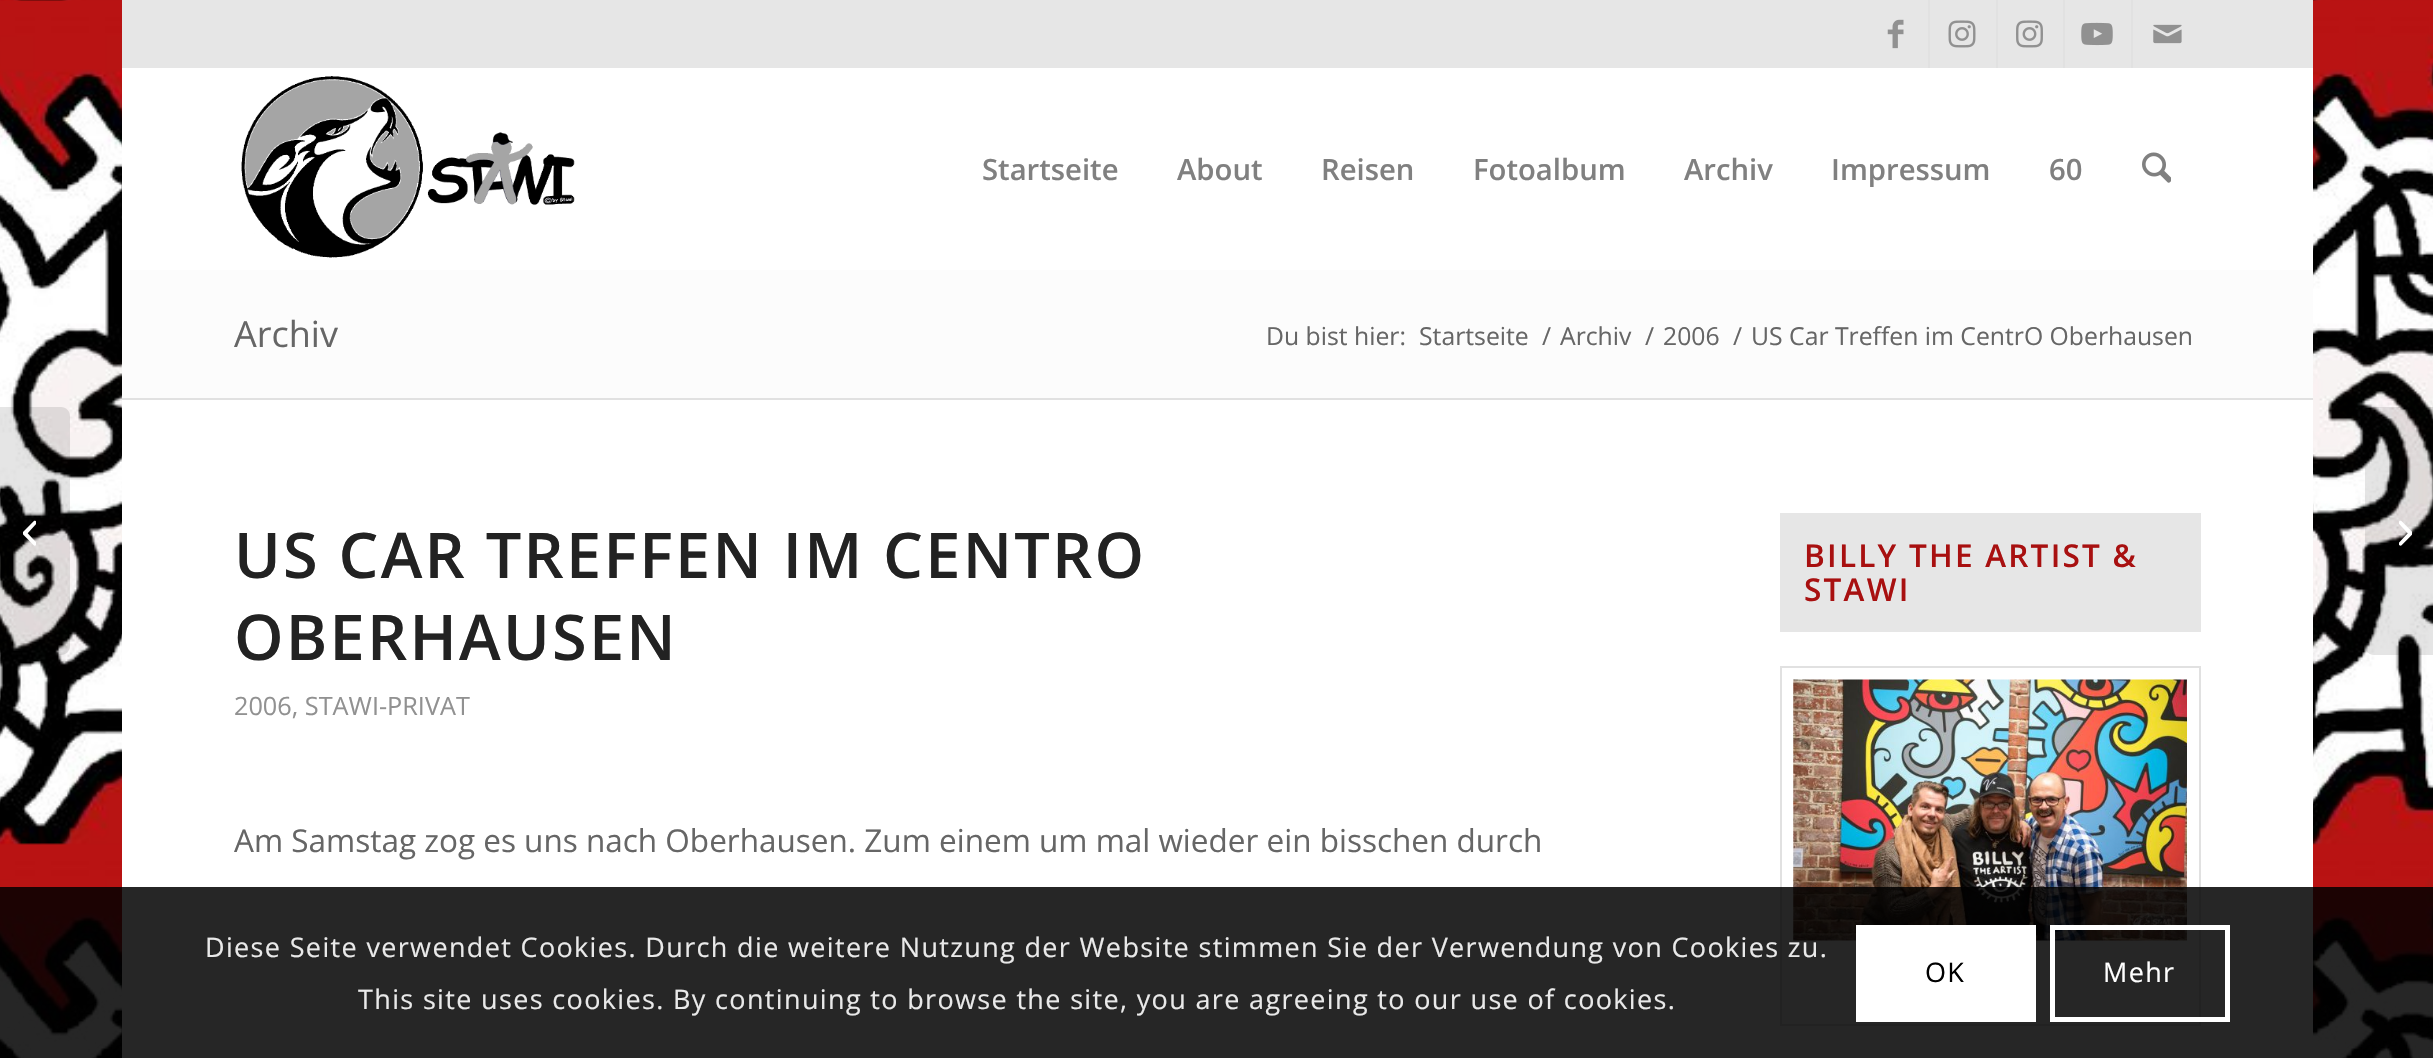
static SkFont makeFont(const char* family, int weight, float size, bool italic = false) {
  SkFontStyle style(weight, SkFontStyle::kNormal_Width,
    italic ? SkFontStyle::kItalic_Slant : SkFontStyle::kUpright_Slant);
  SkFont result(fontMgr->matchFamilyStyle(family, style), size);
  result.setSubpixel(true);
  return result;
}

static void text(SkCanvas* c, const char* s, float x, float y, const SkFont& font, SkColor color) {
  SkPaint ink(SkColor4f::FromColor(color));
  ink.setAntiAlias(true);
  c->drawString(s, x, y, font, ink);
}

static void spacedText(SkCanvas* c, const char* s, float x, float y, const SkFont& font, const SkPaint& ink, float letter, float word) {
  std::vector<SkGlyphID> glyphs(font.countText(s, strlen(s), SkTextEncoding::kUTF8));
  std::vector<float> xs(glyphs.size());
  font.textToGlyphs(s, strlen(s), SkTextEncoding::kUTF8, glyphs);
  font.getXPos(glyphs, xs, x);
  float extra = 0;
  for (size_t i = 0; i < glyphs.size(); i++) {
    xs[i] += extra;
    extra += letter + word * (glyphs[i] == font.unicharToGlyph(' '));
  }
  c->drawTextBlob(SkTextBlob::MakeFromPosHGlyphs(glyphs, xs, y, font), 0, 0, ink);
}

static void box(SkCanvas* c, float l, float t, float r, float b, SkColor color) {
  SkPaint ink(SkColor4f::FromColor(color));
  ink.setAntiAlias(true);
  c->drawRect(SkRect::MakeLTRB(l, t, r, b), ink);
}

static void picture(SkCanvas* c, const char* path, float l, float t, float r, float b) {
  auto image = SkImages::DeferredFromEncodedData(SkData::MakeFromFileName(path));
  c->drawImageRect(image, SkRect::MakeLTRB(l, t, r, b), SkSamplingOptions());
}

void draw(SkCanvas* c) {
  SkPaint paint;
  paint.setAntiAlias(true);
  c->clear(0xffffffff);
  picture(c, "img_01.png", 0, 0, 2433, 1058);
  box(c, 122, 0, 2313, 68, 0xffe6e6e6);
  box(c, 1928, 0, 1930, 68, 0xffe1e1e1);
  picture(c, "img_02.png", 1887, 19, 1904, 49);
  box(c, 1996, 0, 1998, 68, 0xffe1e1e1);
  picture(c, "img_03.png", 1948, 20, 1976, 48);
  box(c, 2063, 0, 2065, 68, 0xffe1e1e1);
  picture(c, "img_04.png", 2016, 20, 2043, 48);
  box(c, 2131, 0, 2133, 68, 0xffe1e1e1);
  picture(c, "img_05.png", 2081, 22, 2113, 46);
  picture(c, "img_06.png", 2153, 24, 2182, 44);
  box(c, 122, 68, 2313, 270, 0xffffffff);
  picture(c, "img_07.png", 241, 76, 575, 258);
  SkFont face1 = makeFont("Open Sans", 600, 29.25f);
  text(c, "Startseite", 982, 180, face1, 0xff808080);
  text(c, "About", 1177, 180, face1, 0xff808080);
  text(c, "Reisen", 1321, 180, face1, 0xff808080);
  text(c, "Fotoalbum", 1473, 180, face1, 0xff808080);
  text(c, "Archiv", 1684, 180, face1, 0xff808080);
  text(c, "Impressum", 1831, 180, face1, 0xff808080);
  text(c, "60", 2049, 180, face1, 0xff808080);
  picture(c, "img_08.png", 2142, 152, 2171, 183);
  paint.setColor(0x1a000000);
  c->drawPath(SkPathBuilder().moveTo(0, 407).lineTo(61, 407).cubicTo(66, 407, 70, 411, 70, 416).lineTo(70, 646).cubicTo(70, 651, 66, 655, 61, 655).lineTo(0, 655).close().detach(), paint);
  picture(c, "img_09.png", 23, 520, 36, 546);
  box(c, 122, 400, 2313, 1058, 0xffffffff);
  box(c, 122, 270, 2313, 398, 0xfffcfcfc);
  SkFont face2 = makeFont("Open Sans", 400, 36);
  text(c, "Archiv", 234, 347, face2, 0xff666666);
  SkFont face3 = makeFont("Open Sans", 400, 24.75f);
  text(c, "Du bist hier:", 1266, 345, face3, 0xff666666);
  text(c, "Startseite", 1419, 345, face3, 0xff666666);
  text(c, "/", 1542, 345, face3, 0xff666666);
  text(c, "Archiv", 1560, 345, face3, 0xff666666);
  text(c, "/", 1645, 345, face3, 0xff666666);
  text(c, "2006", 1663, 345, face3, 0xff666666);
  text(c, "/", 1733, 345, face3, 0xff666666);
  text(c, "US Car Treffen im CentrO Oberhausen", 1751, 345, face3, 0xff666666);
  box(c, 122, 398, 2313, 400, 0xffe1e1e1);
  SkFont face4 = makeFont("Open Sans", 600, 63);
  paint.setColor(0xff222222);
  spacedText(c, "US CAR TREFFEN IM CENTRO", 234, 578, face4, paint, 2.25f, 0);
  spacedText(c, "OBERHAUSEN", 234, 660, face4, paint, 2.25f, 0);
  SkFont face5 = makeFont("Open Sans", 400, 25.25f);
  text(c, "2006, STAWI-PRIVAT", 234, 715, face5, 0xff919191);
  SkFont face6 = makeFont("Open Sans", 400, 31.5f);
  text(c, "Am Samstag zog es uns nach Oberhausen. Zum einem um mal wieder ein bisschen durch", 234, 852, face6, 0xff666666);
  box(c, 1780, 513, 2201, 632, 0xffe6e6e6);
  SkFont face7 = makeFont("Open Sans", 600, 31.5f);
  paint.setColor(0xffa81010);
  spacedText(c, "BILLY THE ARTIST &", 1804, 567, face7, paint, 2.25f, 0);
  spacedText(c, "STAWI", 1804, 601, face7, paint, 2.25f, 0);
  paint.setStyle(SkPaint::kStroke_Style);
  paint.setStrokeWidth(2);
  paint.setColor(0xffe1e1e1);
  c->drawRect(SkRect::MakeLTRB(1781, 667, 2200, 1025), paint);
  picture(c, "img_10.png", 1793, 679, 2187, 941);
  paint.setStyle(SkPaint::kFill_Style);
  paint.setColor(0x1a000000);
  c->drawPath(SkPathBuilder().moveTo(2374, 407).lineTo(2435, 407).lineTo(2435, 655).lineTo(2374, 655).cubicTo(2369, 655, 2365, 651, 2365, 646).lineTo(2365, 416).cubicTo(2365, 411, 2369, 407, 2374, 407).close().detach(), paint);
  picture(c, "img_11.png", 2399, 520, 2412, 546);
  box(c, 0, 887, 2433, 1058, 0xd9000000);
  SkFont face8 = makeFont("Open Sans", 400, 27);
  paint.setColor(0xffe9e9e9);
  spacedText(c, "Diese Seite verwendet Cookies. Durch die weitere Nutzung der Website stimmen Sie der Verwendung von Cookies zu.", 205, 957, face8, paint, 1.35f, 0);
  spacedText(c, "This site uses cookies. By continuing to browse the site, you are agreeing to our use of cookies.", 358, 1009, face8, paint, 1.35f, 0);
  box(c, 1856, 925, 2036, 1022, 0xffffffff);
  paint.setColor(0xff000000);
  spacedText(c, "OK", 1925, 982, face8, paint, 1.35f, 0);
  paint.setStyle(SkPaint::kStroke_Style);
  paint.setStrokeWidth(5);
  paint.setColor(0xffffffff);
  c->drawRect(SkRect::MakeLTRB(2052.5f, 927.5f, 2227.5f, 1019.5f), paint);
  paint.setStyle(SkPaint::kFill_Style);
  spacedText(c, "Mehr", 2103, 982, face8, paint, 1.35f, 0);
}
